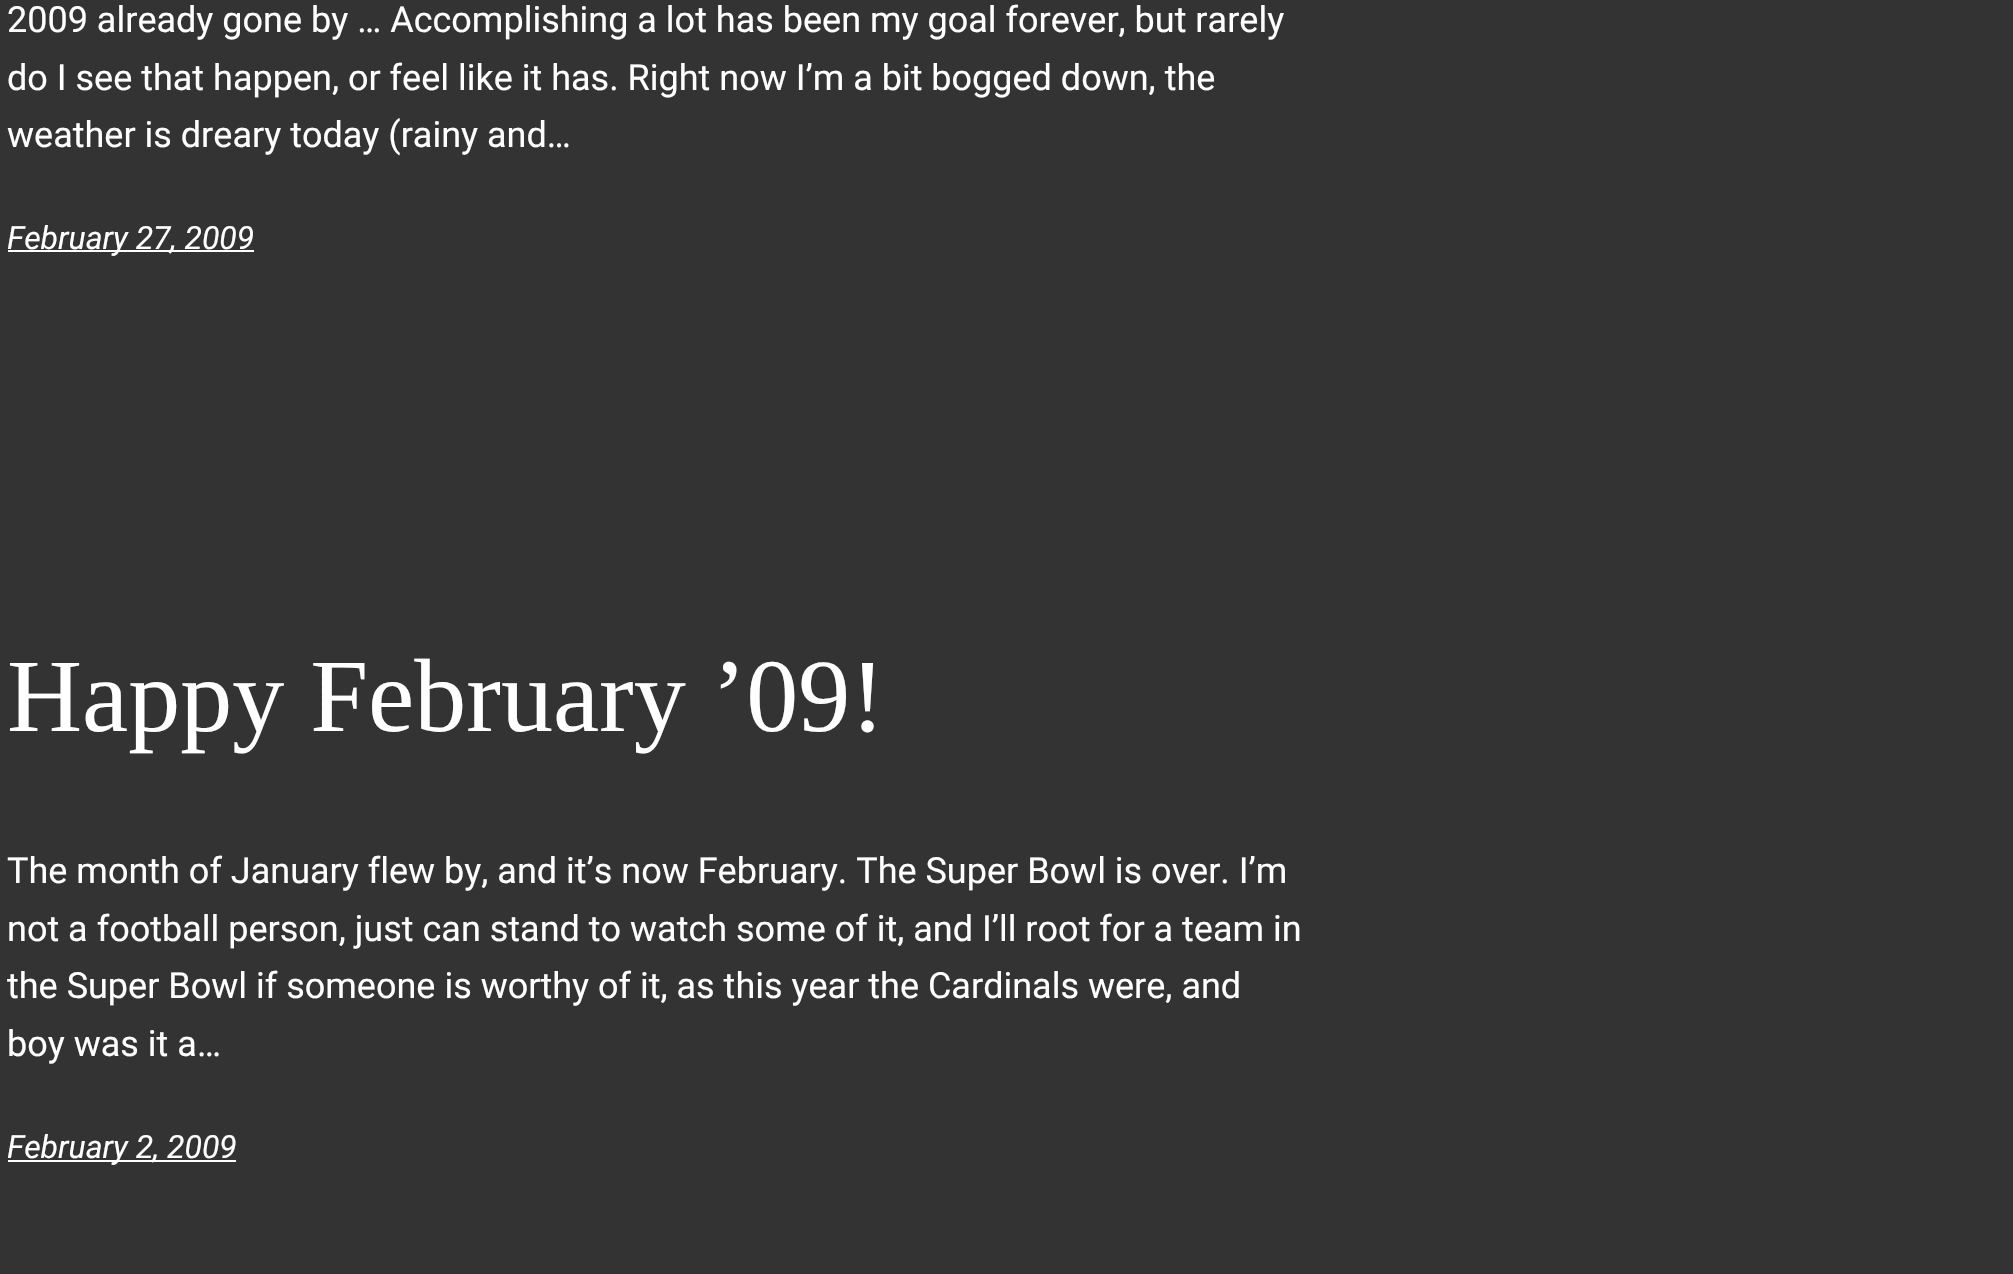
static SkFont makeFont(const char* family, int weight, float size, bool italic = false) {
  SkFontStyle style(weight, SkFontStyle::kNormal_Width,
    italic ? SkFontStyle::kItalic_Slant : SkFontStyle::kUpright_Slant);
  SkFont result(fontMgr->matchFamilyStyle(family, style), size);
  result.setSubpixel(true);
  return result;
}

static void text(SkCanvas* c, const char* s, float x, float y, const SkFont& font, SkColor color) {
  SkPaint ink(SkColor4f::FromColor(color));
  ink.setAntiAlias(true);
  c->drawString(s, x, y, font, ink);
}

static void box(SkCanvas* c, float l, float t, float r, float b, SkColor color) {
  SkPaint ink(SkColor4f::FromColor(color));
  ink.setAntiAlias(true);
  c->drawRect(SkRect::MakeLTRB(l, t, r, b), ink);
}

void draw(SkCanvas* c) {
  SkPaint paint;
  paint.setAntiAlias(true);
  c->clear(0xff333333);
  SkFont face1 = makeFont("Roboto", 400, 36);
  text(c, "2009 already gone by … Accomplishing a lot has been my goal forever, but rarely", 7, 32, face1, 0xffffffff);
  text(c, "do I see that happen, or feel like it has. Right now I’m a bit bogged down, the", 7, 90, face1, 0xffffffff);
  text(c, "weather is dreary today (rainy and…", 7, 147, face1, 0xffffffff);
  box(c, 8, 250, 254, 252, 0xffffffff);
  SkFont face2 = makeFont("Roboto", 400, 32, true);
  text(c, "February 27, 2009", 7, 249, face2, 0xffffffff);
  SkFont face3 = makeFont("Liberation Serif", 400, 104);
  text(c, "Happy February ’09!", 7, 731, face3, 0xffffffff);
  text(c, "The month of January flew by, and it’s now February. The Super Bowl is over. I’m", 7, 883, face1, 0xffffffff);
  text(c, "not a football person, just can stand to watch some of it, and I’ll root for a team in", 7, 941, face1, 0xffffffff);
  text(c, "the Super Bowl if someone is worthy of it, as this year the Cardinals were, and", 7, 998, face1, 0xffffffff);
  text(c, "boy was it a…", 7, 1056, face1, 0xffffffff);
  box(c, 8, 1160, 236, 1162, 0xffffffff);
  text(c, "February 2, 2009", 7, 1158, face2, 0xffffffff);
}
